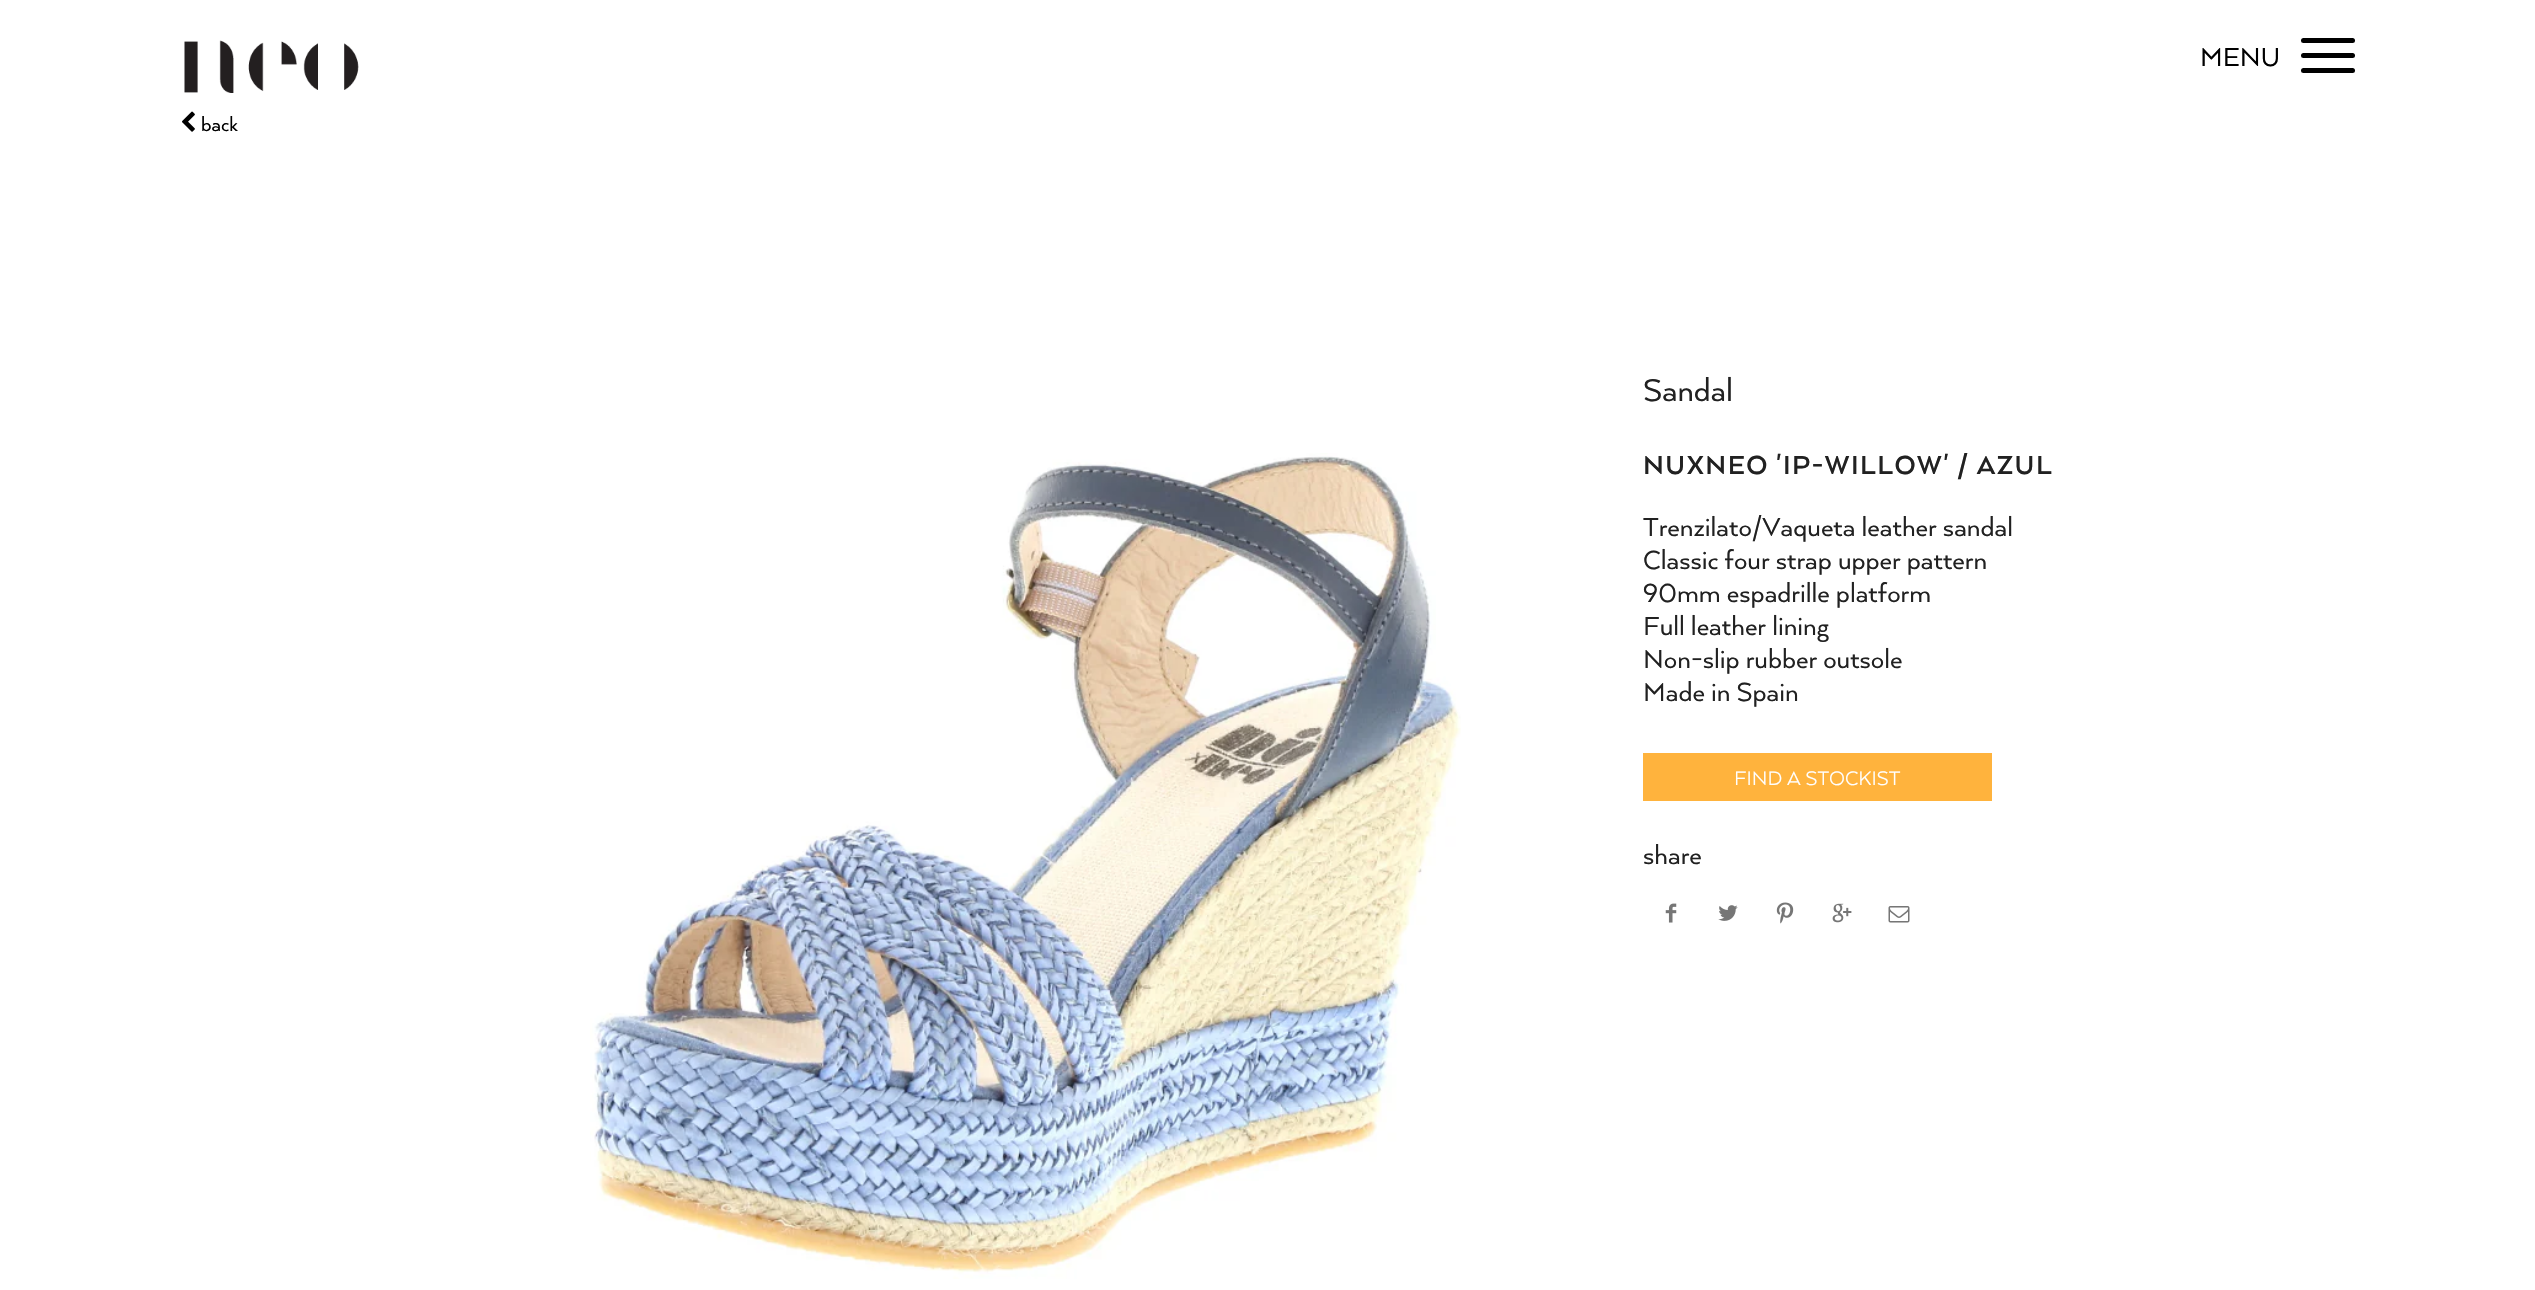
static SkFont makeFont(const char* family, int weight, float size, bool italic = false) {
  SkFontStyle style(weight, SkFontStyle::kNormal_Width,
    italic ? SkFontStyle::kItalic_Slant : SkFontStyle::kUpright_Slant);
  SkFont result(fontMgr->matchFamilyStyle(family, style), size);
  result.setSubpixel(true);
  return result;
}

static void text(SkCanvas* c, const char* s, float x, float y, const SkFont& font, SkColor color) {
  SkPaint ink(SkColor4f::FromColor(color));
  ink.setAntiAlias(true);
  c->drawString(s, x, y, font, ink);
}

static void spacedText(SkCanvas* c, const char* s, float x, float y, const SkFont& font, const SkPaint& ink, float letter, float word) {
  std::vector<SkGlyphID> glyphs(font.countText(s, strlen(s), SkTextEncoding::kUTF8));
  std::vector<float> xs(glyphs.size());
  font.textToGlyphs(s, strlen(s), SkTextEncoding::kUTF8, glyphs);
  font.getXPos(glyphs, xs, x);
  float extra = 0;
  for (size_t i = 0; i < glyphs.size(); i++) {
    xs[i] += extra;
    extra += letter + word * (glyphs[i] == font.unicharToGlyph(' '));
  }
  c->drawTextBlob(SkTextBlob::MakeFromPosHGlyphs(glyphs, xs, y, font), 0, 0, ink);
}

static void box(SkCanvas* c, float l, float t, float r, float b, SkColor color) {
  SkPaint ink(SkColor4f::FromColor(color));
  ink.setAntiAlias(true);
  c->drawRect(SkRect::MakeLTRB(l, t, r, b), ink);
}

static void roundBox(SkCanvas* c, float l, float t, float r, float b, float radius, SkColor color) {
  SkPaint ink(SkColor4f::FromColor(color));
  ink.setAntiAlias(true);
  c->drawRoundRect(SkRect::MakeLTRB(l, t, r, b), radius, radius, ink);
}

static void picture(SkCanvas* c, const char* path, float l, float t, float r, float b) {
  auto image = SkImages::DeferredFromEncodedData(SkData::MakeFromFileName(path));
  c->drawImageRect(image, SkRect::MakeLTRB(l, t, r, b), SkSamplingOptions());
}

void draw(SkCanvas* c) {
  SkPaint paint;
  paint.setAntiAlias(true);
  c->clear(0xffffffff);
  picture(c, "img_01.png", 184, 40, 359, 93);
  SkFont face1 = makeFont("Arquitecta", 400, 30);
  text(c, "MENU", 2200, 66, face1, 0xff000000);
  roundBox(c, 2301, 38, 2355, 43, 2.5f, 0xff000000);
  roundBox(c, 2301, 53, 2355, 58, 2.5f, 0xff000000);
  roundBox(c, 2301, 68, 2355, 73, 2.5f, 0xff000000);
  picture(c, "img_02.png", 182, 111, 195, 132);
  SkFont face2 = makeFont("Arquitecta", 400, 22.5f);
  text(c, "back", 201, 131, face2, 0xff000000);
  picture(c, "img_03.png", 590, 453, 1461, 1279);
  SkFont face3 = makeFont("Arquitecta", 400, 36);
  text(c, "Sandal", 1643, 401, face3, 0xff212121);
  SkFont face4 = makeFont("Arquitecta", 700, 30);
  paint.setColor(0xff212121);
  spacedText(c, "NUXNEO 'IP-WILLOW' / AZUL", 1643, 474, face4, paint, 1.5f, 0);
  text(c, "Trenzilato/Vaqueta leather sandal", 1643, 536, face1, 0xff212121);
  text(c, "Classic four strap upper pattern", 1643, 569, face1, 0xff212121);
  text(c, "90mm espadrille platform", 1643, 602, face1, 0xff212121);
  text(c, "Full leather lining", 1643, 635, face1, 0xff212121);
  text(c, "Non-slip rubber outsole", 1643, 668, face1, 0xff212121);
  text(c, "Made in Spain", 1643, 701, face1, 0xff212121);
  box(c, 1643, 753, 1992, 801, 0xffffb33d);
  SkFont face5 = makeFont("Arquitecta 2", 400, 22.5f);
  text(c, "FIND A STOCKIST", 1734, 785, face5, 0xffffffff);
  text(c, "share", 1643, 864, face1, 0xff212121);
  picture(c, "img_04.png", 1665, 903, 1677, 923);
  picture(c, "img_05.png", 1718, 905, 1738, 921);
  picture(c, "img_06.png", 1776, 902, 1794, 924);
  picture(c, "img_07.png", 1832, 903, 1852, 923);
  picture(c, "img_08.png", 1888, 906, 1910, 923);
}
